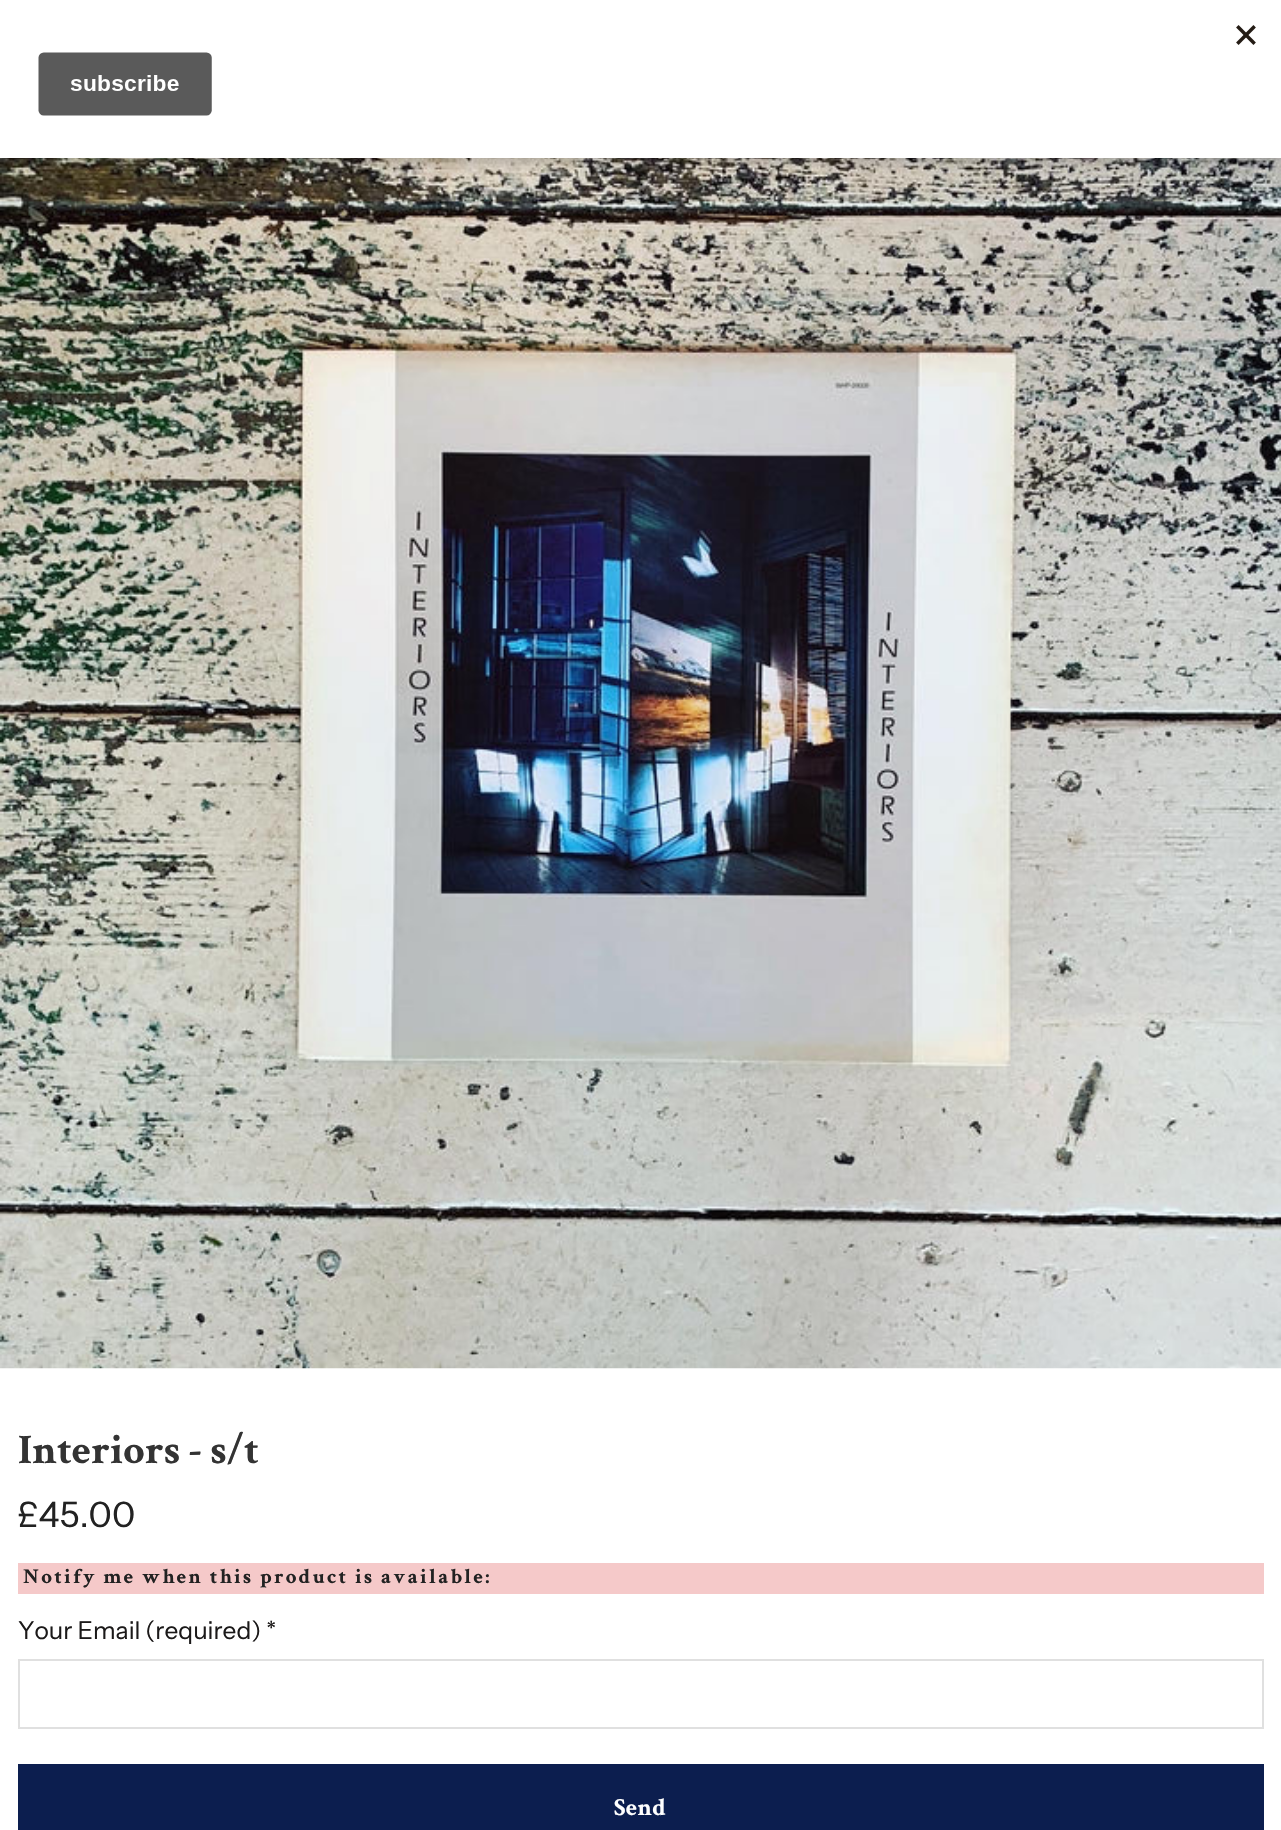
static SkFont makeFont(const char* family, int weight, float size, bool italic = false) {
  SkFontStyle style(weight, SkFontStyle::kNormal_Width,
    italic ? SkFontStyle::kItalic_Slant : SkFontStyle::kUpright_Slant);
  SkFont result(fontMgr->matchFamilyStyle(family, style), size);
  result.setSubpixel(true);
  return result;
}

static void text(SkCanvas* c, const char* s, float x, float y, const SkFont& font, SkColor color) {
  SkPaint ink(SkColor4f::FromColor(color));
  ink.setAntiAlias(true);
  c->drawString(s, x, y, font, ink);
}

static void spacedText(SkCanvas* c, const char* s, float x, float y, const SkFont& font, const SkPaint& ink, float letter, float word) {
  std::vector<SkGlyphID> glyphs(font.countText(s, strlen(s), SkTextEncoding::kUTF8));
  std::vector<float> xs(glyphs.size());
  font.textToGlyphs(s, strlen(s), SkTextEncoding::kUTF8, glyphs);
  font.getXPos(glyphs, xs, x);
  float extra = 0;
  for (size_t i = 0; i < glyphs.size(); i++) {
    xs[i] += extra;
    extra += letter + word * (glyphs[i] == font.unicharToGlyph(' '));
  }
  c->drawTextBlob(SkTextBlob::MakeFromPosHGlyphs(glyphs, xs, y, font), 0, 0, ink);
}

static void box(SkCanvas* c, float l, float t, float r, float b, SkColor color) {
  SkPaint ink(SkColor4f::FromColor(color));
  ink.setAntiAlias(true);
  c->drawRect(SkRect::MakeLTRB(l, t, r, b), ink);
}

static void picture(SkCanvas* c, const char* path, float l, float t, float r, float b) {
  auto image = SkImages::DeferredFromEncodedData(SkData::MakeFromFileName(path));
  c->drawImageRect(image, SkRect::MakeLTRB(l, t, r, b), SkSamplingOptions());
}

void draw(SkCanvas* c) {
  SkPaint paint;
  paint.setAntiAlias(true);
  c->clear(0xffffffff);
  picture(c, "img_02.png", 0, 158, 1281, 1369);
  paint.setColor(0x33000000);
  paint.setMaskFilter(SkMaskFilter::MakeBlur(kNormal_SkBlurStyle, 5));
  c->drawRect(SkRect::MakeLTRB(0, 5, 1281, 163), paint);
  paint.setMaskFilter(nullptr);
  box(c, 0, 0, 1281, 158, 0xffffffff);
  picture(c, "img_01.png", 38, 25, 1256, 116);
  SkFont face1 = makeFont("Crimson Text", 700, 42);
  text(c, "Interiors - s/t", 18, 1463, face1, 0xff333333);
  SkFont face2 = makeFont("Instrument Sans", 400, 35);
  text(c, "£45.00", 18, 1527, face2, 0xff222222);
  box(c, 18, 1563, 1264, 1594, 0xfff5c9c9);
  SkFont face3 = makeFont("Crimson Text", 700, 21);
  paint.setColor(0xff222222);
  spacedText(c, "Notify me when this product is available:", 23, 1583, face3, paint, 2.3f, 0);
  SkFont face4 = makeFont("Instrument Sans", 400, 24.5f);
  text(c, "Your Email (required) *", 18, 1639, face4, 0xff1b1919);
  paint.setStyle(SkPaint::kStroke_Style);
  paint.setStrokeWidth(2);
  paint.setColor(0xffe0e0e0);
  c->drawRect(SkRect::MakeLTRB(19, 1660, 1263, 1728), paint);
  box(c, 18, 1764, 1264, 1830, 0xff0c1e4f);
  SkFont face5 = makeFont("Crimson Text", 700, 24.5f);
  paint.setStyle(SkPaint::kFill_Style);
  paint.setColor(0xffffffff);
  spacedText(c, "Send", 614, 1815, face5, paint, 0.5f, 0);
}
